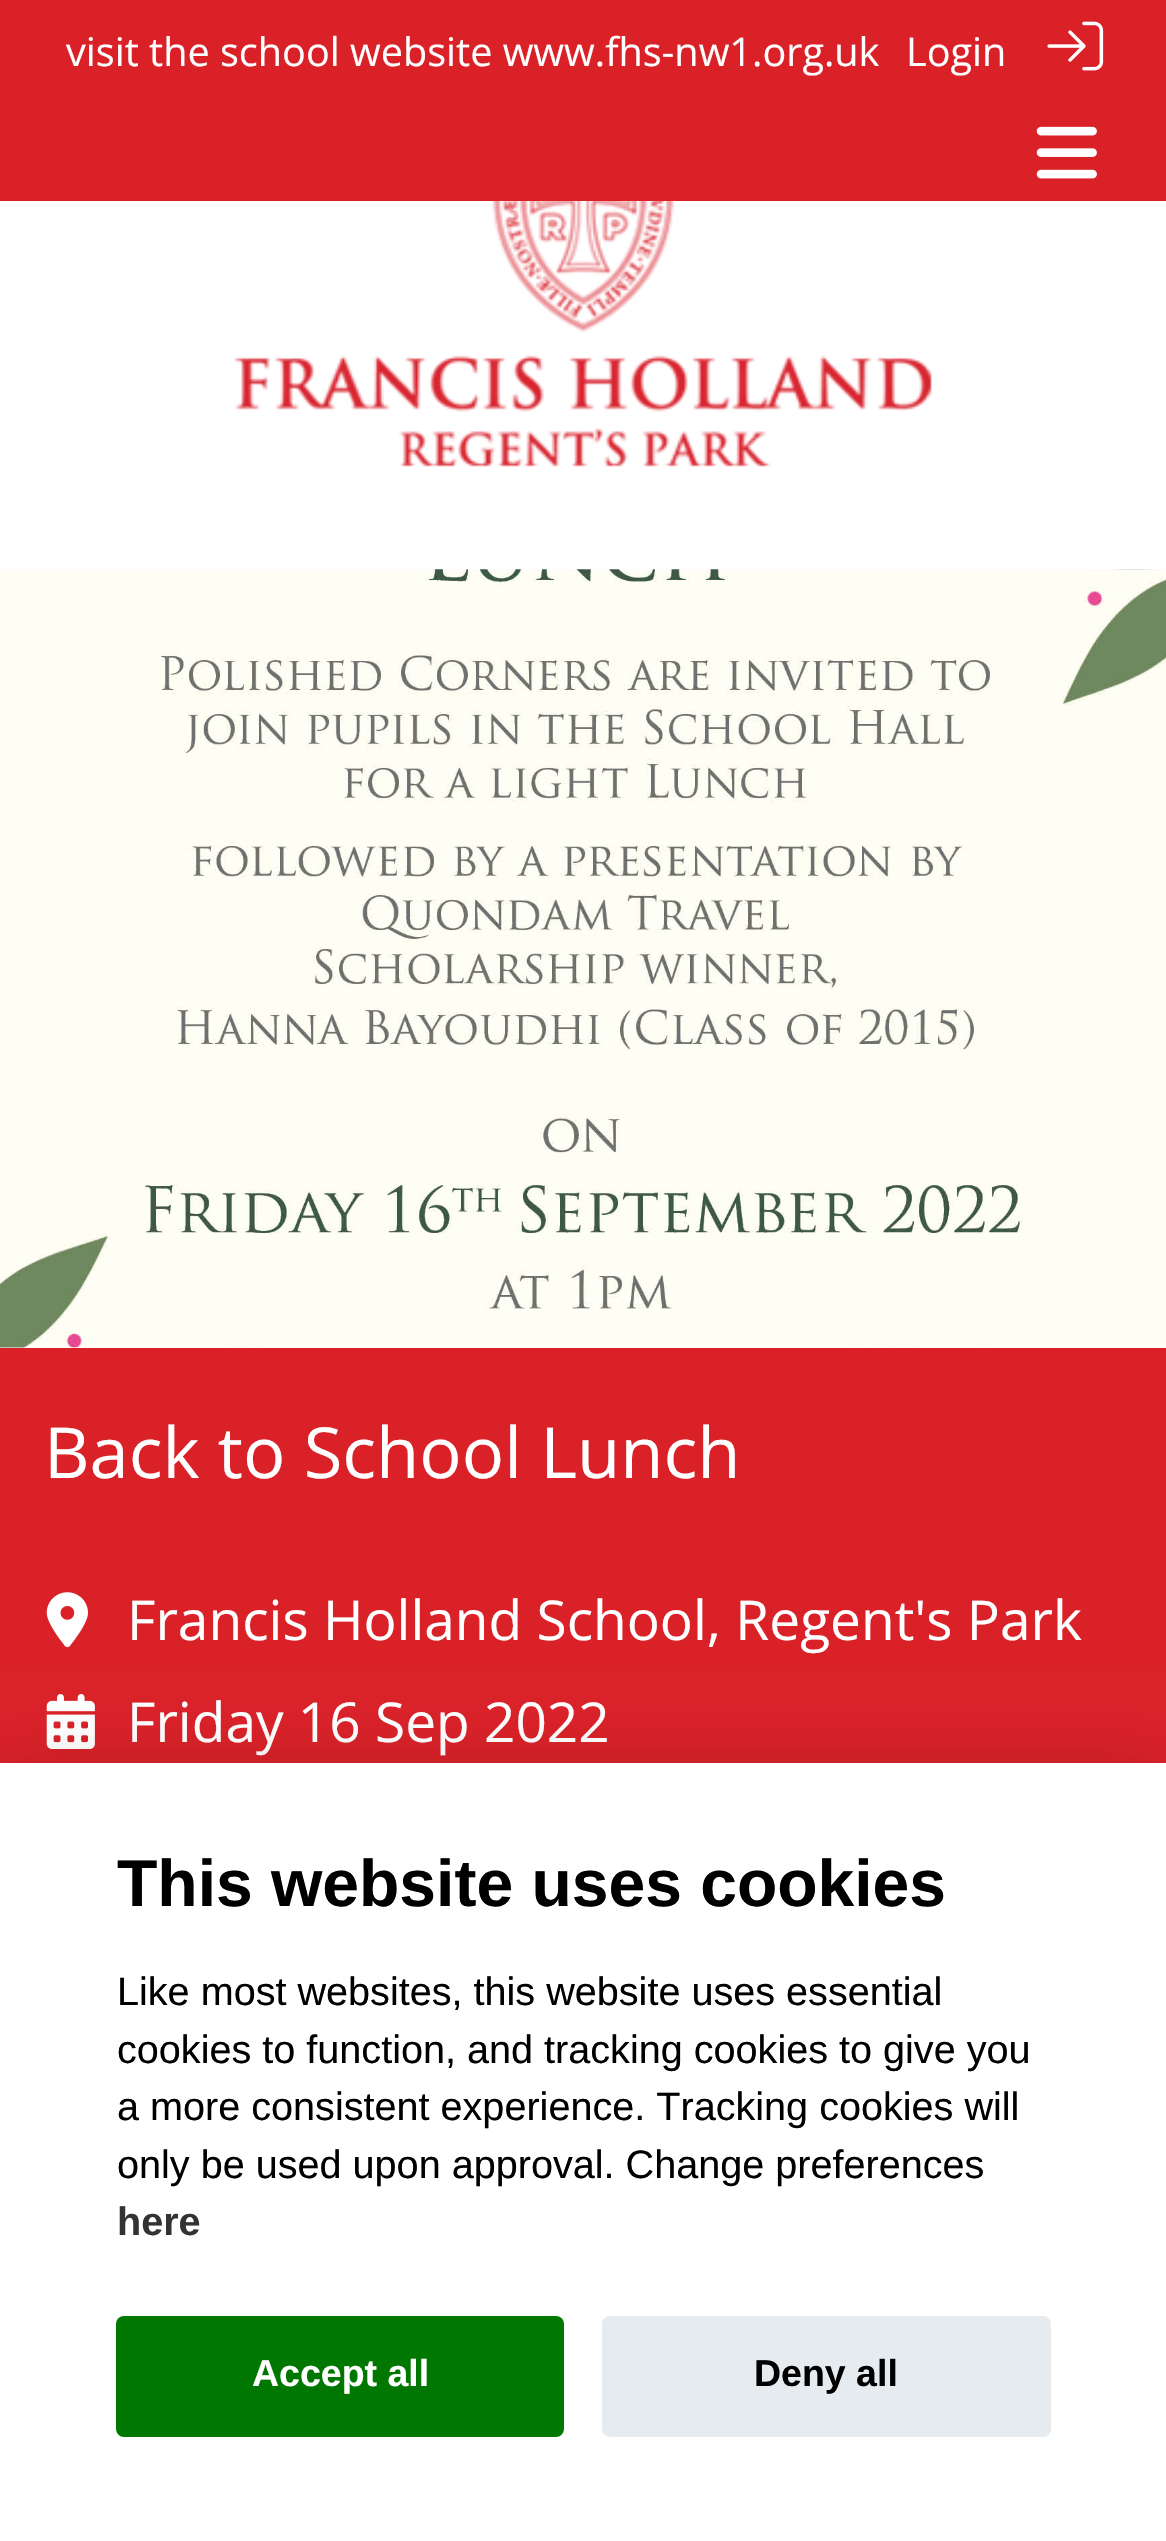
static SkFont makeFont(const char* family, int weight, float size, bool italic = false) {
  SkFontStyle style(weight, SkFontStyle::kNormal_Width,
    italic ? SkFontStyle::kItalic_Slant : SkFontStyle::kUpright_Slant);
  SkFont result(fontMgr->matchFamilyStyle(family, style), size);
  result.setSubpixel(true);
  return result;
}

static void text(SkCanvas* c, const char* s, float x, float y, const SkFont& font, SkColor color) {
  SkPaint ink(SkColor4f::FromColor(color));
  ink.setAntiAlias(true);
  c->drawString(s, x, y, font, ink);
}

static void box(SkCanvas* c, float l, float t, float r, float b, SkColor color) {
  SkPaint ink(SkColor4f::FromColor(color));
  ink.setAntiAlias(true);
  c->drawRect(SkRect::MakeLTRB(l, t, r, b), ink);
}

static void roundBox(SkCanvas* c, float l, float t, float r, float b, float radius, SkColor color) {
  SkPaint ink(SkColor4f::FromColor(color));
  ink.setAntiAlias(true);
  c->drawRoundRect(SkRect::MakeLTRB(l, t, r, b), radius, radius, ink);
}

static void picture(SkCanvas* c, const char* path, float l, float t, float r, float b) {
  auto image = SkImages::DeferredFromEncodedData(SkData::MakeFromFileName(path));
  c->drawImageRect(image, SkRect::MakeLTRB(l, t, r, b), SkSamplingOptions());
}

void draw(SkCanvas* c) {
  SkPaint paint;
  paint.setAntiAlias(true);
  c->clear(0xffda2128);
  SkFont face1 = makeFont("Open Sans", 400, 39.6f);
  text(c, "visit the school website www.fhs-nw1.org.uk", 66, 66, face1, 0xffffffff);
  text(c, "Login", 906, 66, face1, 0xffffffff);
  picture(c, "img_01.png", 1047, 21, 1104, 71);
  picture(c, "img_02.png", 1036, 126, 1097, 179);
  box(c, 0, 201, 1166, 569, 0xffffffff);
  picture(c, "img_03.png", 234, 201, 932, 467);
  box(c, 0, 569, 1166, 1348, 0xffffffff);
  picture(c, "img_04.png", 0, 569, 1166, 1348);
  SkFont face2 = makeFont("Open Sans", 400, 70.5f);
  text(c, "Back to School Lunch", 44, 1478, face2, 0xffffffff);
  picture(c, "img_05.png", 46, 1592, 88, 1648);
  SkFont face3 = makeFont("Open Sans", 400, 55);
  text(c, "Francis Holland School, Regent's Park", 127, 1640, face3, 0xffffffff);
  picture(c, "img_06.png", 46, 1694, 95, 1749);
  text(c, "Friday 16 Sep 2022", 127, 1742, face3, 0xffffffff);
  paint.setColor(0x47020203);
  paint.setMaskFilter(SkMaskFilter::MakeBlur(kNormal_SkBlurStyle, 41));
  c->drawRect(SkRect::MakeLTRB(0, 1790, 1166, 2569), paint);
  paint.setMaskFilter(nullptr);
  box(c, 0, 1763, 1166, 2541, 0xffffffff);
  SkFont face4 = makeFont("Liberation Sans", 700, 66);
  text(c, "This website uses cookies", 117, 1906, face4, 0xff000000);
  SkFont face5 = makeFont("Liberation Sans", 400, 39.6f);
  text(c, "Like most websites, this website uses essential", 117, 2005, face5, 0xff000000);
  text(c, "cookies to function, and tracking cookies to give you", 117, 2063, face5, 0xff000000);
  text(c, "a more consistent experience. Tracking cookies will", 117, 2120, face5, 0xff000000);
  text(c, "only be used upon approval. Change preferences", 117, 2178, face5, 0xff000000);
  SkFont face6 = makeFont("Liberation Sans", 700, 39.6f);
  text(c, "here", 117, 2235, face6, 0xff333333);
  roundBox(c, 116, 2316, 564, 2437, 8, 0xff007700);
  SkFont face7 = makeFont("Liberation Sans", 700, 37.5f);
  text(c, "Accept all", 252, 2386, face7, 0xffffffff);
  roundBox(c, 602, 2316, 1051, 2437, 8, 0xffe5ebef);
  text(c, "Deny all", 754, 2386, face7, 0xff000000);
}
